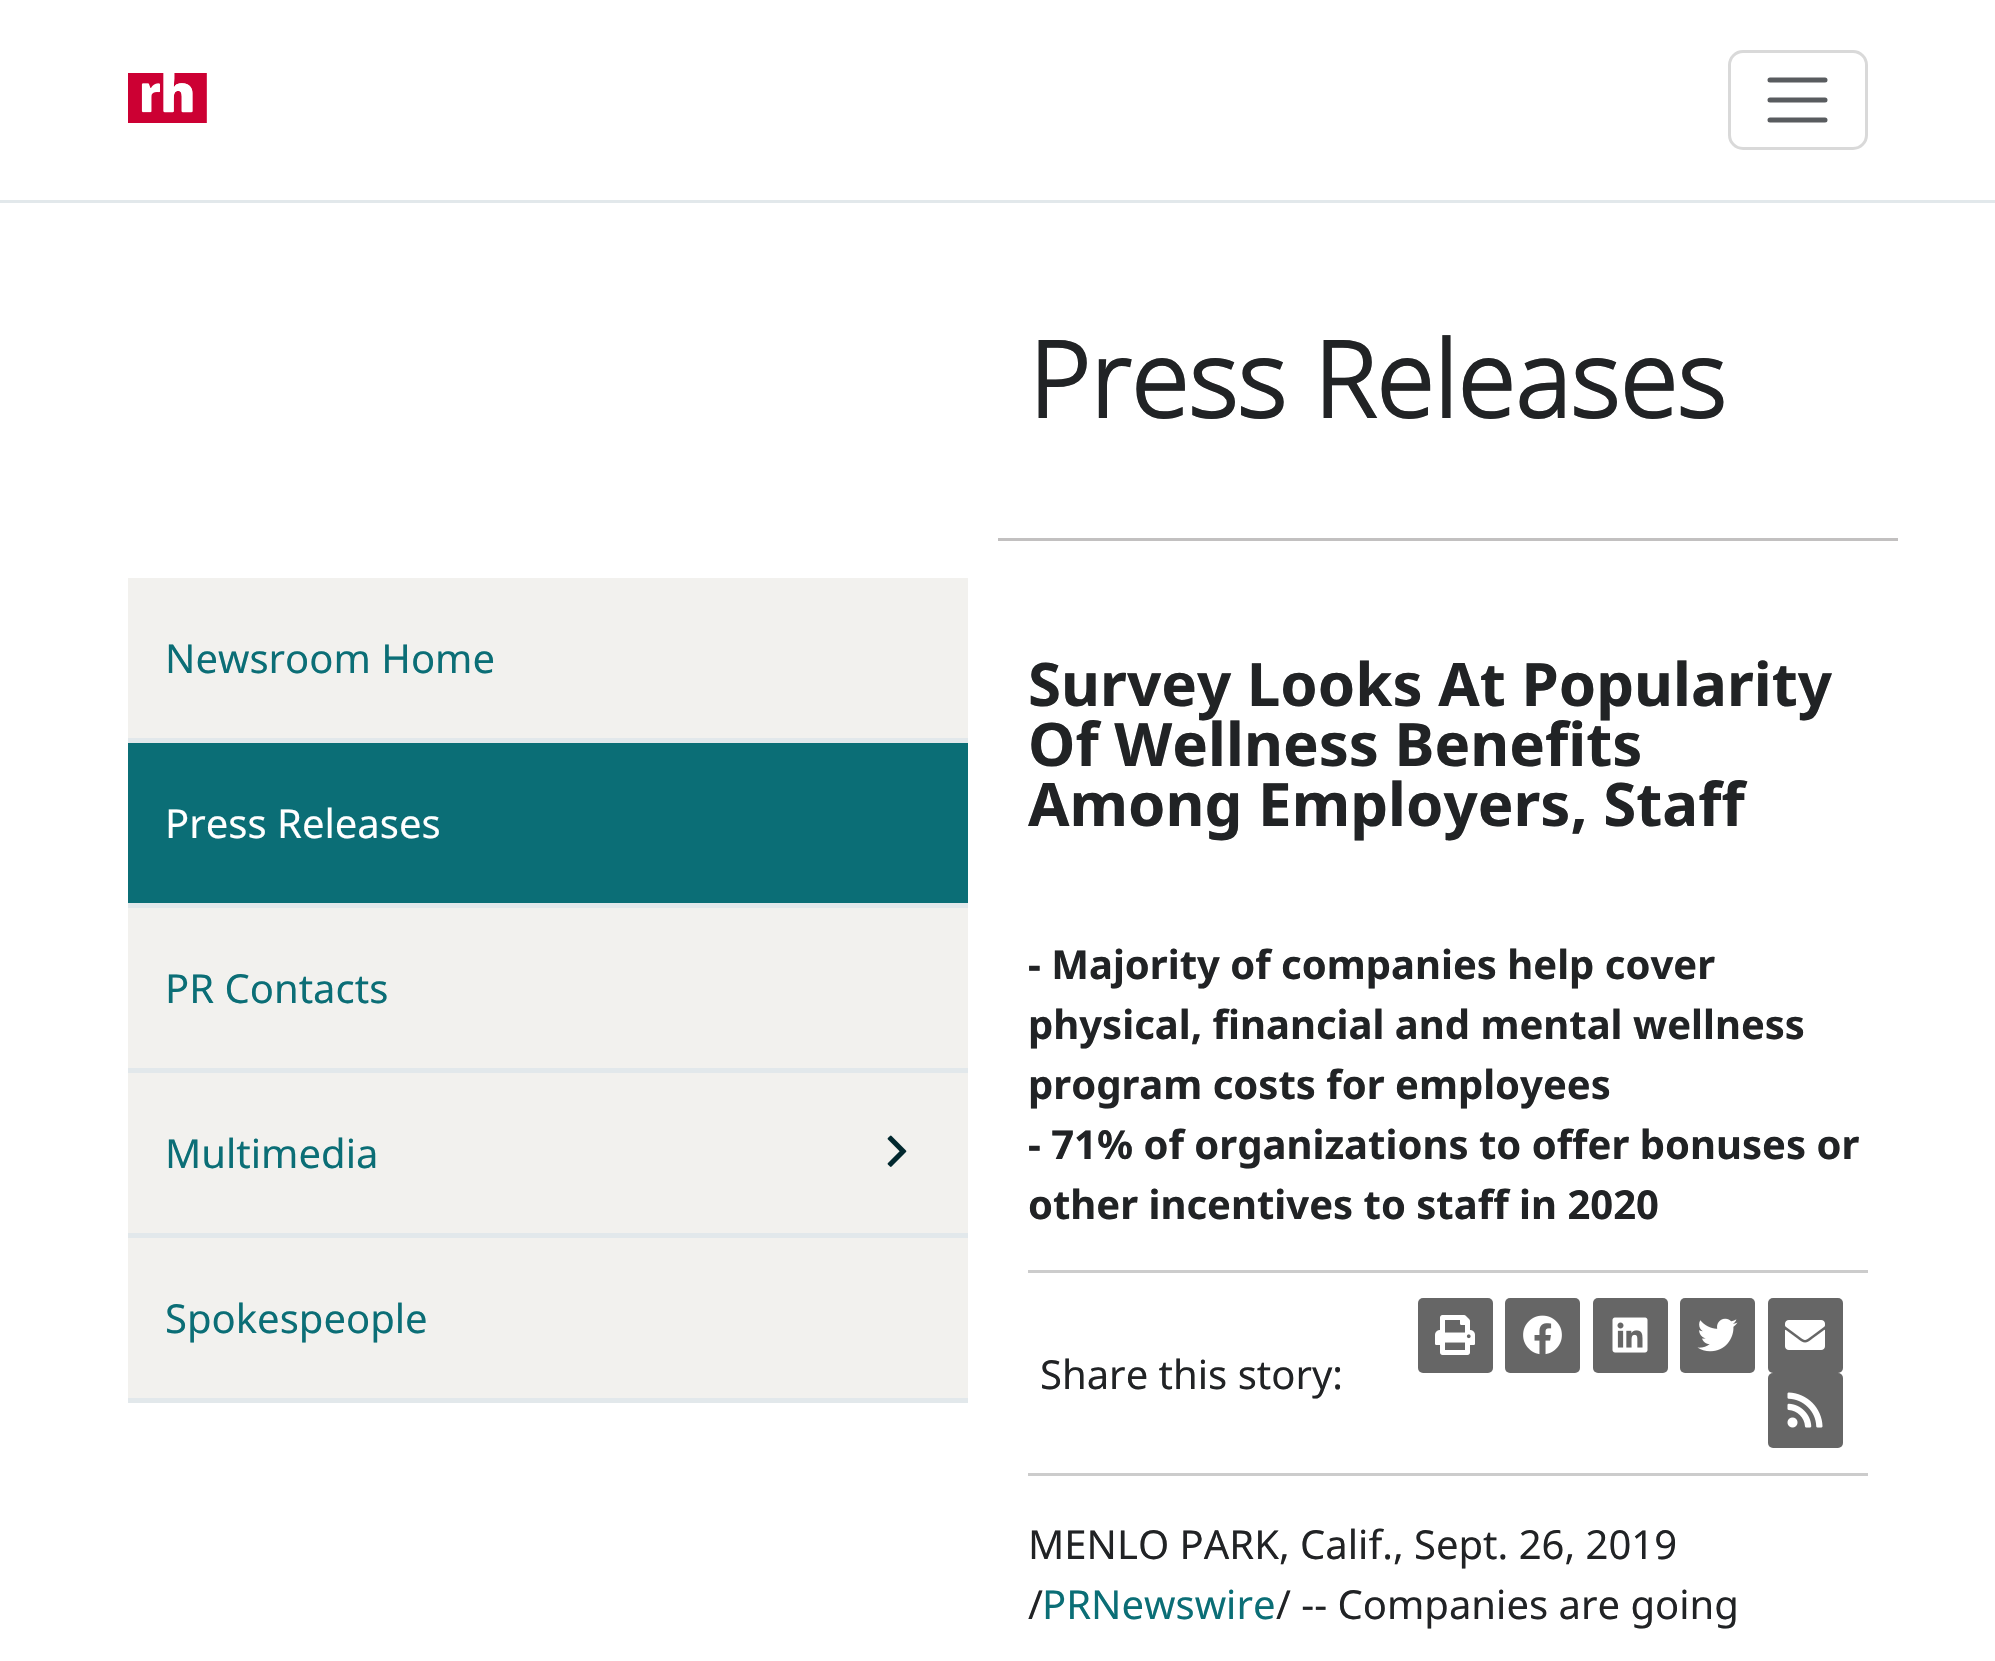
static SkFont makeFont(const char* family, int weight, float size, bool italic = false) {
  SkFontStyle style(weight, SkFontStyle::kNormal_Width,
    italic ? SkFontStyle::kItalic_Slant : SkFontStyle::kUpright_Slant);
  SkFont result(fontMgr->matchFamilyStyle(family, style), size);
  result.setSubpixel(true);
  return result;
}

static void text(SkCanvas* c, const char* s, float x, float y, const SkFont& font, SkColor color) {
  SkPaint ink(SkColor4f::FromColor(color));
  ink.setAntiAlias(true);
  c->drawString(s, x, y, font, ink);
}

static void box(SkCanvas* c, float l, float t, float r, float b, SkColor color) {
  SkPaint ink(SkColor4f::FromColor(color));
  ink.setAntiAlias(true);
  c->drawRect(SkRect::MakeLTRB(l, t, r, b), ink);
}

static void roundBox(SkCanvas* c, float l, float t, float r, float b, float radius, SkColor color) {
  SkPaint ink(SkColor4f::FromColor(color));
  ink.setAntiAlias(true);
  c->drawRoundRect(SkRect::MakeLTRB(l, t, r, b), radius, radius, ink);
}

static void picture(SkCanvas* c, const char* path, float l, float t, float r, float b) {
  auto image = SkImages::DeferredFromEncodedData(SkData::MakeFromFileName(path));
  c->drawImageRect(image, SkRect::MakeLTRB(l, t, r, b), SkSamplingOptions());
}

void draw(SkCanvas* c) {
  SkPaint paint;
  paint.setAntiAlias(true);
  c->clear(0xffffffff);
  box(c, 0, 200, 1995, 203, 0xffe2e8eb);
  picture(c, "img_01.png", 128, 73, 207, 123);
  paint.setStyle(SkPaint::kStroke_Style);
  paint.setStrokeWidth(3);
  paint.setColor(0xffd9d9d9);
  c->drawRoundRect(SkRect::MakeLTRB(1729.5f, 51.5f, 1866.5f, 148.5f), 13.5f, 13.5f, paint);
  paint.setStrokeWidth(5);
  paint.setStrokeCap(SkPaint::kRound_Cap);
  paint.setColor(0xff595c5f);
  c->drawPath(SkPathBuilder().moveTo(1770, 80).lineTo(1825, 80).moveTo(1770, 100).lineTo(1825, 100).moveTo(1770, 120).lineTo(1825, 120).detach(), paint);
  box(c, 128, 578, 968, 738, 0xfff2f1ee);
  box(c, 128, 738, 968, 743, 0xffe2e8eb);
  SkFont face1 = makeFont("Noto Sans", 400, 40);
  text(c, "Newsroom Home", 165, 673, face1, 0xff0b6e76);
  box(c, 128, 743, 968, 903, 0xff0b6e76);
  box(c, 128, 903, 968, 908, 0xffe2e8eb);
  text(c, "Press Releases", 165, 838, face1, 0xffffffff);
  box(c, 128, 908, 968, 1068, 0xfff2f1ee);
  box(c, 128, 1068, 968, 1073, 0xffe2e8eb);
  text(c, "PR Contacts", 165, 1003, face1, 0xff0b6e76);
  box(c, 128, 1073, 968, 1233, 0xfff2f1ee);
  box(c, 128, 1233, 968, 1238, 0xffe2e8eb);
  text(c, "Multimedia", 165, 1168, face1, 0xff0b6e76);
  picture(c, "img_02.png", 887, 1135, 907, 1167);
  box(c, 128, 1238, 968, 1398, 0xfff2f1ee);
  box(c, 128, 1398, 968, 1403, 0xffe2e8eb);
  text(c, "Spokespeople", 165, 1333, face1, 0xff0b6e76);
  SkFont face2 = makeFont("Open Sans", 700, 105);
  text(c, "Press Releases", 1028, 418, face2, 0xff212325);
  box(c, 998, 538, 1898, 541, 0xffc2c0c0);
  SkFont face3 = makeFont("Noto Sans", 700, 60);
  text(c, "Survey Looks At Popularity", 1028, 706, face3, 0xff212325);
  text(c, "Of Wellness Benefits", 1028, 766, face3, 0xff212325);
  text(c, "Among Employers, Staff", 1028, 826, face3, 0xff212325);
  SkFont face4 = makeFont("Noto Sans", 700, 40);
  text(c, "- Majority of companies help cover", 1028, 979, face4, 0xff212325);
  text(c, "physical, financial and mental wellness", 1028, 1039, face4, 0xff212325);
  text(c, "program costs for employees", 1028, 1099, face4, 0xff212325);
  text(c, "- 71% of organizations to offer bonuses or", 1028, 1159, face4, 0xff212325);
  text(c, "other incentives to staff in 2020", 1028, 1219, face4, 0xff212325);
  box(c, 1028, 1270, 1868, 1273, 0xffcccccc);
  box(c, 1028, 1473, 1868, 1476, 0xffcccccc);
  text(c, "Share this story:", 1040, 1389, face1, 0xff212325);
  roundBox(c, 1418, 1298, 1493, 1373, 5, 0xff666666);
  picture(c, "img_03.png", 1435, 1315, 1475, 1355);
  roundBox(c, 1505, 1298, 1580, 1373, 5, 0xff666666);
  picture(c, "img_04.png", 1523, 1315, 1562, 1355);
  roundBox(c, 1593, 1298, 1668, 1373, 5, 0xff666666);
  picture(c, "img_05.png", 1612, 1317, 1648, 1353);
  roundBox(c, 1680, 1298, 1755, 1373, 5, 0xff666666);
  picture(c, "img_06.png", 1697, 1318, 1738, 1352);
  roundBox(c, 1768, 1298, 1843, 1373, 5, 0xff666666);
  picture(c, "img_07.png", 1785, 1320, 1825, 1350);
  roundBox(c, 1768, 1373, 1843, 1448, 5, 0xff666666);
  picture(c, "img_08.png", 1787, 1392, 1823, 1428);
  text(c, "MENLO PARK, Calif., Sept. 26, 2019", 1028, 1559, face1, 0xff212325);
  text(c, "/", 1028, 1619, face1, 0xff212325);
  text(c, "PRNewswire", 1042, 1619, face1, 0xff0b6e76);
  text(c, "/ -- Companies are going", 1276, 1619, face1, 0xff212325);
}
